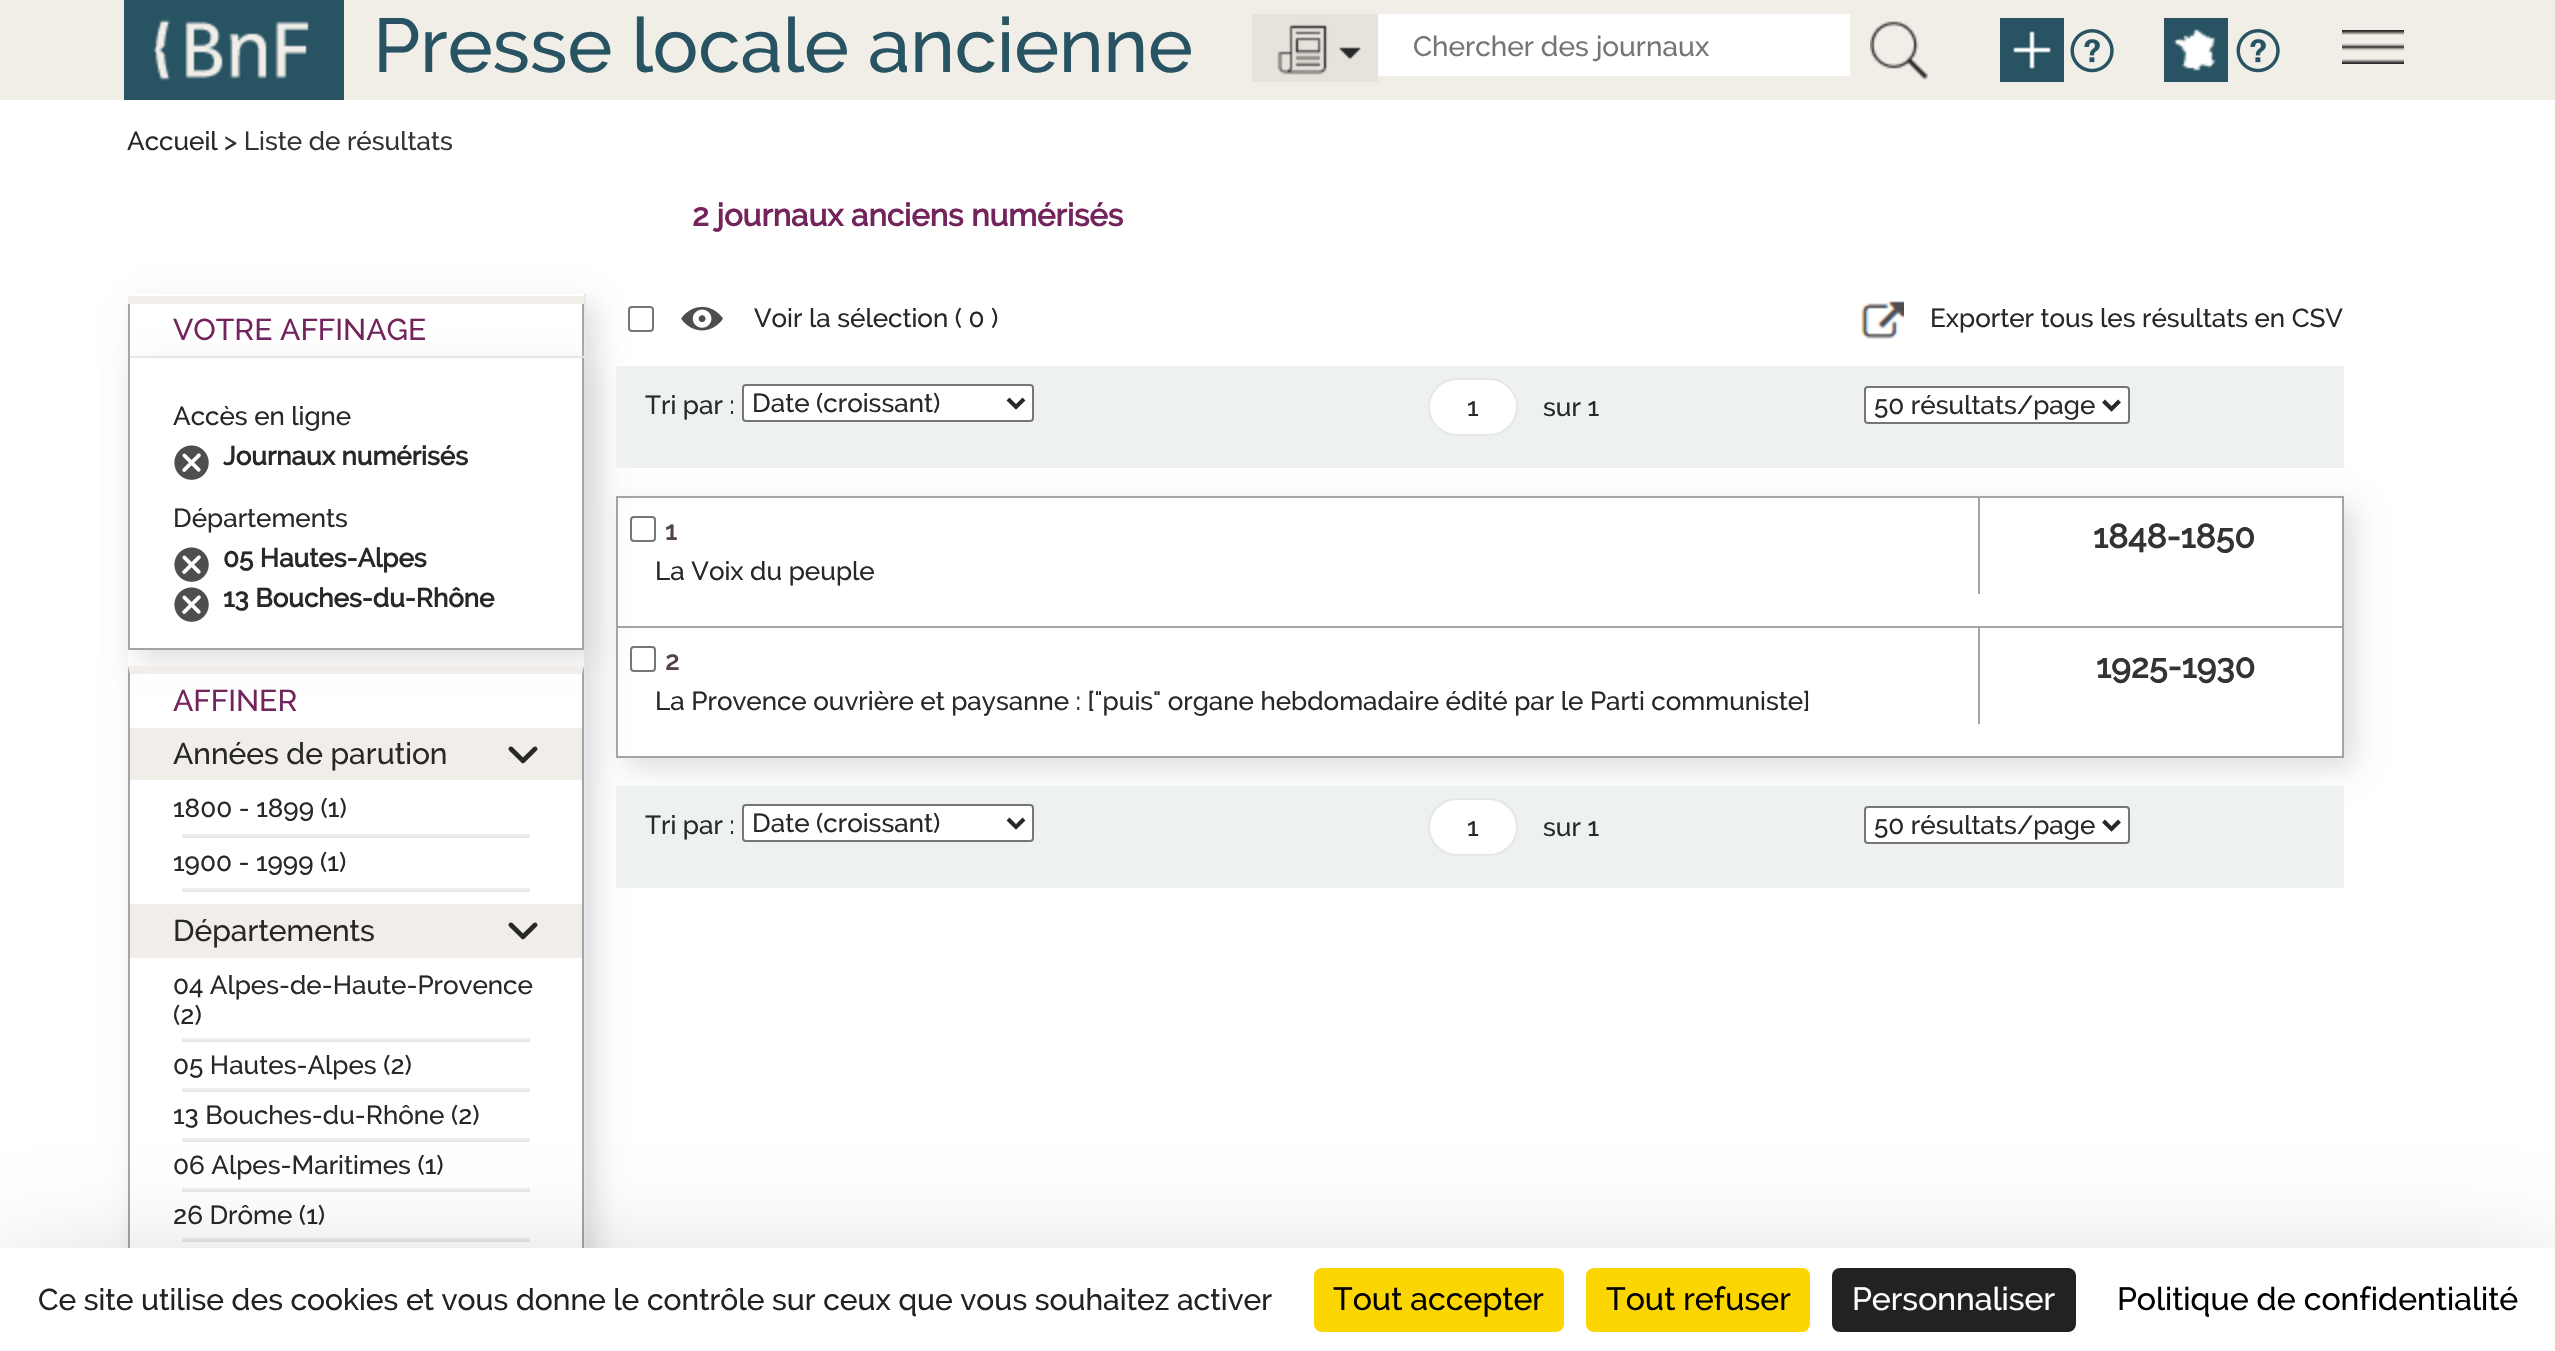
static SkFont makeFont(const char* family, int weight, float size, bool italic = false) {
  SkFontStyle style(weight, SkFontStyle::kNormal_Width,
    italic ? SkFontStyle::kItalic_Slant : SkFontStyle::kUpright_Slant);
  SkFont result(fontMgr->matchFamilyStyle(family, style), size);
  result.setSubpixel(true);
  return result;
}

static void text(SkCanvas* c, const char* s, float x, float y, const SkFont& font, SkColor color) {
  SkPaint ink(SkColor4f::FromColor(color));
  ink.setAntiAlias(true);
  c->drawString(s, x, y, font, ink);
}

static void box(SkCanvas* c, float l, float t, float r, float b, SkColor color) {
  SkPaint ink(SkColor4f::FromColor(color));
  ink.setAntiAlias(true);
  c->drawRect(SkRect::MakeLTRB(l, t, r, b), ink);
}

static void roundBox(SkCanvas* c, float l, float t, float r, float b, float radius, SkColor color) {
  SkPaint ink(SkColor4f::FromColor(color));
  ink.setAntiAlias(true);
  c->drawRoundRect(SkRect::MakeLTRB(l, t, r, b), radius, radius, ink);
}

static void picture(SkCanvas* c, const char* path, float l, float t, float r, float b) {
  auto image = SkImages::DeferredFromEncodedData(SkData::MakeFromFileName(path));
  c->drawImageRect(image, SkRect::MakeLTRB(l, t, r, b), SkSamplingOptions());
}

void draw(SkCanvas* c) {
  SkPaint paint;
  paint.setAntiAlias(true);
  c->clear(0xffffffff);
  box(c, 0, 0, 2555, 100, 0xfff1eee8);
  picture(c, "img_01.png", 124, 0, 344, 100);
  SkFont face1 = makeFont("Raleway", 500, 76);
  text(c, "Presse locale ancienne", 373, 72, face1, 0xff275363);
  picture(c, "img_02.png", 1252, 14, 1378, 82);
  box(c, 1378, 14, 1850, 76, 0xffffffff);
  SkFont face2 = makeFont("Raleway", 500, 28);
  text(c, "Chercher des journaux", 1413, 56, face2, 0xff757575);
  picture(c, "img_03.png", 1870, 21, 1928, 80);
  picture(c, "img_04.png", 2000, 18, 2064, 82);
  picture(c, "img_05.png", 2070, 29, 2114, 73);
  picture(c, "img_06.png", 2164, 18, 2228, 82);
  picture(c, "img_05.png", 2236, 29, 2280, 73);
  picture(c, "img_07.png", 2342, 30, 2404, 64);
  SkFont face3 = makeFont("Raleway", 500, 26);
  text(c, "Accueil", 127, 150, face3, 0xff282828);
  text(c, "> Liste de résultats", 224, 150, face3, 0xff333333);
  SkFont face4 = makeFont("Raleway", 700, 31.25f);
  text(c, "2 journaux anciens numérisés", 692, 226, face4, 0xff73245c);
  c->save();
  c->clipPath(SkPathBuilder(SkPathFillType::kEvenOdd).moveTo(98, 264).lineTo(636, 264).lineTo(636, 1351).lineTo(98, 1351).close().moveTo(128, 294).lineTo(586, 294).lineTo(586, 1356).lineTo(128, 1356).close().detach(), true);
  paint.setColor(0xffdddddd);
  paint.setMaskFilter(SkMaskFilter::MakeBlur(kNormal_SkBlurStyle, 13));
  c->drawRect(SkRect::MakeLTRB(138, 304, 596, 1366), paint);
  paint.setMaskFilter(nullptr);
  c->restore();
  box(c, 584, 294, 586, 1248, 0xffe7e6e8);
  box(c, 128, 296, 584, 304, 0xfff1eee9);
  box(c, 582, 304, 584, 358, 0xffa4a4a8);
  box(c, 128, 356, 584, 358, 0xffe7e6e8);
  box(c, 128, 304, 130, 358, 0xffa4a4a8);
  c->save();
  c->clipPath(SkPathBuilder(SkPathFillType::kEvenOdd).moveTo(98, 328).lineTo(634, 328).lineTo(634, 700).lineTo(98, 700).close().moveTo(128, 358).lineTo(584, 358).lineTo(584, 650).lineTo(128, 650).close().detach(), true);
  paint.setMaskFilter(SkMaskFilter::MakeBlur(kNormal_SkBlurStyle, 13));
  c->drawRect(SkRect::MakeLTRB(138, 368, 594, 660), paint);
  paint.setMaskFilter(nullptr);
  c->restore();
  SkFont face5 = makeFont("Raleway", 500, 30);
  text(c, "VOTRE AFFINAGE", 173, 340, face5, 0xff73245c);
  box(c, 582, 358, 584, 650, 0xffa4a4a8);
  box(c, 128, 648, 584, 650, 0xffa4a4a8);
  box(c, 128, 358, 130, 650, 0xffa4a4a8);
  text(c, "Accès en ligne", 173, 425, face3, 0xff282828);
  picture(c, "img_08.png", 174, 445, 209, 480);
  SkFont face6 = makeFont("Raleway", 700, 26);
  text(c, "Journaux numérisés", 223, 465, face6, 0xff282828);
  text(c, "Départements", 173, 527, face3, 0xff282828);
  picture(c, "img_08.png", 174, 547, 209, 582);
  text(c, "05 Hautes-Alpes", 223, 567, face6, 0xff282828);
  picture(c, "img_08.png", 174, 587, 209, 622);
  text(c, "13 Bouches-du-Rhône", 223, 607, face6, 0xff282828);
  box(c, 141, 674, 582, 679, 0xffffffff);
  paint.setColor(0xfff1eee9);
  c->drawPath(SkPathBuilder().moveTo(128, 666).lineTo(584, 666).lineTo(582, 674).lineTo(130, 674).close().detach(), paint);
  paint.setColor(0xffa4a4a8);
  c->drawPath(SkPathBuilder().moveTo(584, 666).lineTo(584, 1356).lineTo(582, 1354).lineTo(582, 674).close().detach(), paint);
  c->drawPath(SkPathBuilder().moveTo(128, 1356).lineTo(128, 666).lineTo(130, 674).lineTo(130, 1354).close().detach(), paint);
  text(c, "AFFINER", 173, 711, face5, 0xff73245c);
  box(c, 130, 728, 582, 780, 0xfff1eee9);
  text(c, "Années de parution", 173, 764, face5, 0xff282828);
  picture(c, "img_09.png", 508, 746, 538, 764);
  text(c, "1800 - 1899 (1)", 173, 817, face3, 0xff282828);
  box(c, 182, 836, 530, 838, 0xffe7e6e8);
  box(c, 182, 834, 530, 836, 0xffeeeeee);
  text(c, "1900 - 1999 (1)", 173, 871, face3, 0xff282828);
  box(c, 182, 890, 530, 892, 0xffe7e6e8);
  box(c, 182, 888, 530, 890, 0xffeeeeee);
  box(c, 130, 904, 582, 958, 0xfff1eee9);
  text(c, "Départements", 173, 941, face5, 0xff282828);
  picture(c, "img_09.png", 508, 922, 538, 940);
  text(c, "04 Alpes-de-Haute-Provence", 173, 994, face3, 0xff282828);
  text(c, "(2)", 173, 1024, face3, 0xff282828);
  box(c, 182, 1040, 530, 1042, 0xffe7e6e8);
  box(c, 182, 1038, 530, 1040, 0xffeeeeee);
  text(c, "05 Hautes-Alpes (2)", 173, 1074, face3, 0xff282828);
  box(c, 182, 1090, 530, 1092, 0xffe7e6e8);
  box(c, 182, 1088, 530, 1090, 0xffeeeeee);
  text(c, "13 Bouches-du-Rhône (2)", 173, 1124, face3, 0xff282828);
  box(c, 182, 1140, 530, 1142, 0xffe7e6e8);
  box(c, 182, 1138, 530, 1140, 0xffeeeeee);
  text(c, "06 Alpes-Maritimes (1)", 173, 1174, face3, 0xff282828);
  box(c, 182, 1190, 530, 1192, 0xffe7e6e8);
  box(c, 182, 1188, 530, 1190, 0xffeeeeee);
  text(c, "26 Drôme (1)", 173, 1224, face3, 0xff282828);
  box(c, 182, 1240, 530, 1242, 0xffe7e6e8);
  box(c, 182, 1238, 530, 1240, 0xffeeeeee);
  paint.setStyle(SkPaint::kStroke_Style);
  paint.setStrokeWidth(2);
  paint.setColor(0xff767676);
  c->drawRoundRect(SkRect::MakeLTRB(629, 307, 653, 331), 3, 3, paint);
  picture(c, "img_10.png", 681, 306, 723, 331);
  text(c, "Voir la sélection ( 0 )", 754, 327, face3, 0xff282828);
  picture(c, "img_11.png", 1861, 301, 1904, 339);
  text(c, "Exporter tous les résultats en CSV", 1930, 327, face3, 0xff282828);
  box(c, 616, 366, 2344, 468, 0xffedf1f2);
  text(c, "Tri par :", 645, 414, face3, 0xff282828);
  paint.setStyle(SkPaint::kFill_Style);
  paint.setColor(0xffffffff);
  c->drawRoundRect(SkRect::MakeLTRB(743, 385, 1033, 421), 3, 3, paint);
  paint.setStyle(SkPaint::kStroke_Style);
  paint.setColor(0xff767676);
  c->drawRoundRect(SkRect::MakeLTRB(743, 385, 1033, 421), 3, 3, paint);
  paint.setStrokeWidth(4);
  paint.setColor(0xff282828);
  c->drawPath(SkPathBuilder().moveTo(1008, 399).lineTo(1016, 407).lineTo(1024, 399).detach(), paint);
  text(c, "Date (croissant)", 752, 412, face3, 0xff282828);
  paint.setStyle(SkPaint::kFill_Style);
  paint.setColor(0xffffffff);
  c->drawRoundRect(SkRect::MakeLTRB(1429, 379, 1517, 435), 28, 28, paint);
  paint.setStyle(SkPaint::kStroke_Style);
  paint.setStrokeWidth(2);
  paint.setColor(0xffe7e6e8);
  c->drawRoundRect(SkRect::MakeLTRB(1429, 379, 1517, 435), 28, 28, paint);
  text(c, "1", 1467, 416, face3, 0xff282828);
  text(c, "sur 1", 1543, 416, face3, 0xff282828);
  paint.setStyle(SkPaint::kFill_Style);
  paint.setColor(0xffffffff);
  c->drawRoundRect(SkRect::MakeLTRB(1865, 387, 2129, 423), 3, 3, paint);
  paint.setStyle(SkPaint::kStroke_Style);
  paint.setColor(0xff767676);
  c->drawRoundRect(SkRect::MakeLTRB(1865, 387, 2129, 423), 3, 3, paint);
  paint.setStrokeWidth(4);
  paint.setColor(0xff282828);
  c->drawPath(SkPathBuilder().moveTo(2103.5f, 401).lineTo(2111.5f, 409).lineTo(2119.5f, 401).detach(), paint);
  text(c, "50 résultats/page", 1874, 414, face3, 0xff282828);
  c->save();
  c->clipPath(SkPathBuilder(SkPathFillType::kEvenOdd).moveTo(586, 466).lineTo(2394, 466).lineTo(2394, 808).lineTo(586, 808).close().moveTo(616, 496).lineTo(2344, 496).lineTo(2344, 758).lineTo(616, 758).close().detach(), true);
  paint.setStyle(SkPaint::kFill_Style);
  paint.setColor(0xffdddddd);
  paint.setMaskFilter(SkMaskFilter::MakeBlur(kNormal_SkBlurStyle, 13));
  c->drawRect(SkRect::MakeLTRB(626, 506, 2354, 768), paint);
  paint.setMaskFilter(nullptr);
  c->restore();
  paint.setStyle(SkPaint::kStroke_Style);
  paint.setStrokeWidth(2);
  paint.setColor(0xffa4a4a8);
  c->drawRect(SkRect::MakeLTRB(617, 497, 2343, 757), paint);
  paint.setColor(0xff767676);
  c->drawRoundRect(SkRect::MakeLTRB(631, 517, 655, 541), 3, 3, paint);
  text(c, "1", 665, 540, face6, 0xff564343);
  text(c, "La Voix du peuple", 655, 580, face3, 0xff282828);
  box(c, 1978, 498, 1980, 594, 0xffa4a4a8);
  SkFont face7 = makeFont("Raleway", 700, 33.5f);
  text(c, "1848-1850", 2093, 548, face7, 0xff333333);
  box(c, 618, 626, 2342, 628, 0xffa4a4a8);
  c->drawRoundRect(SkRect::MakeLTRB(631, 647, 655, 671), 3, 3, paint);
  text(c, "2", 665, 670, face6, 0xff564343);
  text(c, "La Provence ouvrière et paysanne : [\"puis\" organe hebdomadaire édité par le Parti communiste]", 655, 710, face3, 0xff282828);
  box(c, 1978, 628, 1980, 724, 0xffa4a4a8);
  text(c, "1925-1930", 2096, 678, face7, 0xff333333);
  box(c, 616, 786, 2344, 888, 0xffedf1f2);
  text(c, "Tri par :", 645, 834, face3, 0xff282828);
  paint.setStyle(SkPaint::kFill_Style);
  paint.setColor(0xffffffff);
  c->drawRoundRect(SkRect::MakeLTRB(743, 805, 1033, 841), 3, 3, paint);
  paint.setStyle(SkPaint::kStroke_Style);
  paint.setColor(0xff767676);
  c->drawRoundRect(SkRect::MakeLTRB(743, 805, 1033, 841), 3, 3, paint);
  paint.setStrokeWidth(4);
  paint.setColor(0xff282828);
  c->drawPath(SkPathBuilder().moveTo(1008, 819).lineTo(1016, 827).lineTo(1024, 819).detach(), paint);
  text(c, "Date (croissant)", 752, 832, face3, 0xff282828);
  paint.setStyle(SkPaint::kFill_Style);
  paint.setColor(0xffffffff);
  c->drawRoundRect(SkRect::MakeLTRB(1429, 799, 1517, 855), 28, 28, paint);
  paint.setStyle(SkPaint::kStroke_Style);
  paint.setStrokeWidth(2);
  paint.setColor(0xffe7e6e8);
  c->drawRoundRect(SkRect::MakeLTRB(1429, 799, 1517, 855), 28, 28, paint);
  text(c, "1", 1467, 836, face3, 0xff282828);
  text(c, "sur 1", 1543, 836, face3, 0xff282828);
  paint.setStyle(SkPaint::kFill_Style);
  paint.setColor(0xffffffff);
  c->drawRoundRect(SkRect::MakeLTRB(1865, 807, 2129, 843), 3, 3, paint);
  paint.setStyle(SkPaint::kStroke_Style);
  paint.setColor(0xff767676);
  c->drawRoundRect(SkRect::MakeLTRB(1865, 807, 2129, 843), 3, 3, paint);
  paint.setStrokeWidth(4);
  paint.setColor(0xff282828);
  c->drawPath(SkPathBuilder().moveTo(2103.5f, 821).lineTo(2111.5f, 829).lineTo(2119.5f, 821).detach(), paint);
  text(c, "50 résultats/page", 1874, 834, face3, 0xff282828);
  paint.setStyle(SkPaint::kFill_Style);
  paint.setColor(0x40000000);
  paint.setMaskFilter(SkMaskFilter::MakeBlur(kNormal_SkBlurStyle, 60));
  c->drawRect(SkRect::MakeLTRB(0, 1288, 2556, 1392), paint);
  paint.setMaskFilter(nullptr);
  box(c, 0, 1248, 2555, 1351, 0xffffffff);
  text(c, "Ce site utilise des cookies et vous donne le contrôle sur ceux que vous souhaitez activer", 38, 1310, face5, 0xff222222);
  roundBox(c, 1314, 1268, 1564, 1332, 8, 0xfffbd600);
  SkFont face8 = makeFont("Raleway", 500, 32);
  text(c, "Tout accepter", 1333, 1310, face8, 0xff000000);
  roundBox(c, 1586, 1268, 1810, 1332, 8, 0xfffbd600);
  text(c, "Tout refuser", 1606, 1310, face8, 0xff000000);
  roundBox(c, 1832, 1268, 2076, 1332, 8, 0xff222222);
  text(c, "Personnaliser", 1852, 1310, face8, 0xffffffff);
  text(c, "Politique de confidentialité", 2117, 1310, face8, 0xff000000);
}
